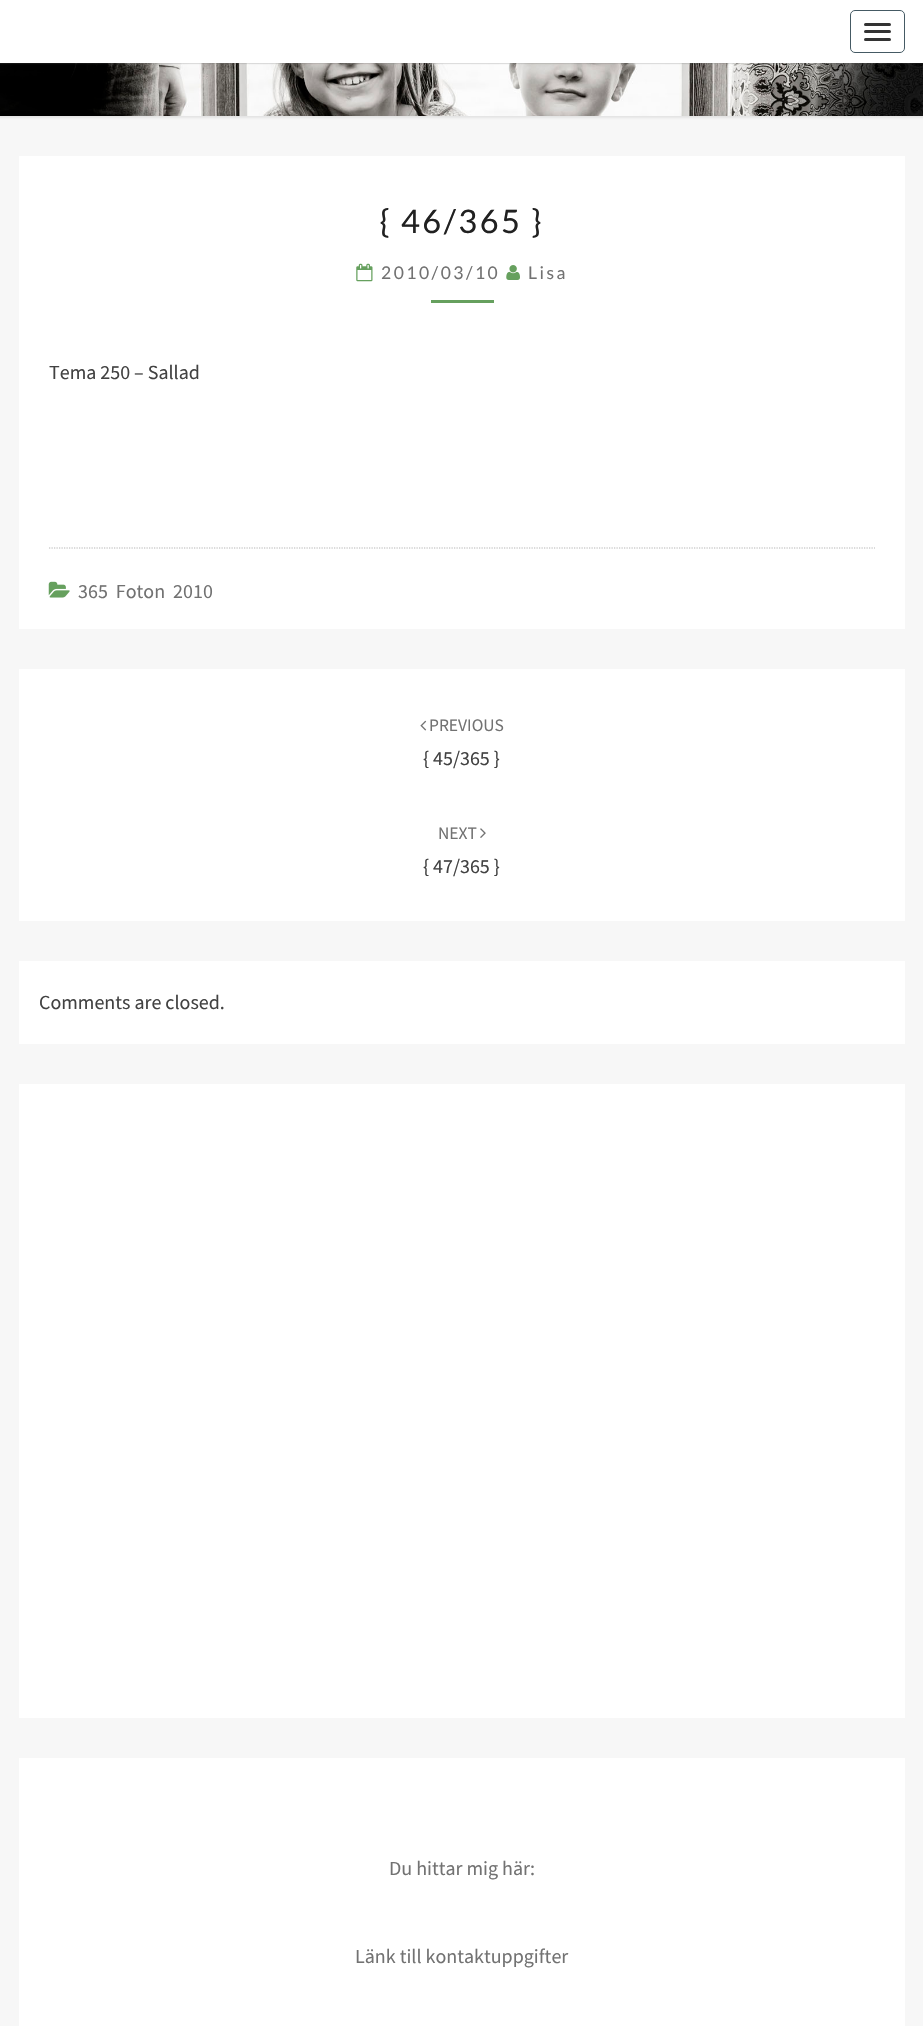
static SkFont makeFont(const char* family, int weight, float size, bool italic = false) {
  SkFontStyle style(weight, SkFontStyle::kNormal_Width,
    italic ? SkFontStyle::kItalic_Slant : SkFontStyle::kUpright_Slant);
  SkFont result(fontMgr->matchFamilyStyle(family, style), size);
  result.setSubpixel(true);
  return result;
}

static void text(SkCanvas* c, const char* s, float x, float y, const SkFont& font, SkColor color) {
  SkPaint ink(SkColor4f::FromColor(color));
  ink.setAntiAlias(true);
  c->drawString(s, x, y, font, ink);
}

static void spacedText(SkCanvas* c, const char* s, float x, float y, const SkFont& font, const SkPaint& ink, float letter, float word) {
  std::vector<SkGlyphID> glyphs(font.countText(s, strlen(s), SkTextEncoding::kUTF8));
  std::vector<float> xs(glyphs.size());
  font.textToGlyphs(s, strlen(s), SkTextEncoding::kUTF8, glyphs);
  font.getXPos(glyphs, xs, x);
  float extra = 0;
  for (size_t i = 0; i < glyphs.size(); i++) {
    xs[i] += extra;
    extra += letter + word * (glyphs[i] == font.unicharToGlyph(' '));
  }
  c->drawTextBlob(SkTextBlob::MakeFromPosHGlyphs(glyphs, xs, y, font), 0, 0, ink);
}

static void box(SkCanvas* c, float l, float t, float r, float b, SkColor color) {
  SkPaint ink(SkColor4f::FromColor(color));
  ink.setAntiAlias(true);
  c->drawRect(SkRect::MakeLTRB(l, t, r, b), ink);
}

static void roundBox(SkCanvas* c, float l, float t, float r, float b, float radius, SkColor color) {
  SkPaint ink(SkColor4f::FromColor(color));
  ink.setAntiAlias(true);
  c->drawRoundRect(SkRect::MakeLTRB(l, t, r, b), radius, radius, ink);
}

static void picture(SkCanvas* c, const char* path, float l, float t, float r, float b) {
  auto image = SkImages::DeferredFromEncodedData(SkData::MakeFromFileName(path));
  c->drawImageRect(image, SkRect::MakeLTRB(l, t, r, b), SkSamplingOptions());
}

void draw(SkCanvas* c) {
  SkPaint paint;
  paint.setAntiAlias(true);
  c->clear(0xfff7f7f7);
  paint.setColor(0x4db6b6b6);
  paint.setMaskFilter(SkMaskFilter::MakeBlur(kNormal_SkBlurStyle, 1));
  c->drawRect(SkRect::MakeLTRB(-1, -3, 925, 118), paint);
  paint.setMaskFilter(nullptr);
  picture(c, "img_01.png", 0, 63, 923, 116);
  paint.setColor(0x33646464);
  paint.setMaskFilter(SkMaskFilter::MakeBlur(kNormal_SkBlurStyle, 0.5f));
  c->drawRect(SkRect::MakeLTRB(0, 1, 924, 64), paint);
  paint.setMaskFilter(nullptr);
  box(c, 0, 0, 923, 63, 0xffffffff);
  paint.setStyle(SkPaint::kStroke_Style);
  paint.setStrokeWidth(1);
  paint.setColor(0xff455a64);
  c->drawRoundRect(SkRect::MakeLTRB(850.5f, 10.5f, 904.5f, 52.5f), 4.5f, 4.5f, paint);
  roundBox(c, 864, 23, 891, 26, 1.5f, 0xff333333);
  roundBox(c, 864, 30, 891, 33, 1.5f, 0xff333333);
  roundBox(c, 864, 38, 891, 41, 1.5f, 0xff333333);
  box(c, 19, 156, 905, 629, 0xffffffff);
  SkFont face1 = makeFont("Lato", 400, 32.5f);
  paint.setStyle(SkPaint::kFill_Style);
  paint.setColor(0xff212121);
  spacedText(c, "{ 46/365 }", 380, 233, face1, paint, 2.5f, 0);
  picture(c, "img_02.png", 356, 263, 373, 282);
  SkFont face2 = makeFont("Lato", 400, 17.5f);
  paint.setColor(0xff727272);
  spacedText(c, "2010/03/10", 381, 279, face2, paint, 2.5f, 0);
  picture(c, "img_03.png", 506, 265, 520, 280);
  spacedText(c, "Lisa", 528, 279, face2, paint, 2.5f, 0);
  box(c, 431, 300, 494, 303, 0xff66a05e);
  SkFont face3 = makeFont("Source Sans Pro", 400, 20);
  text(c, "Tema 250 – Sallad", 49, 379, face3, 0xff424242);
  paint.setStyle(SkPaint::kStroke_Style);
  paint.setStrokeWidth(1.2f);
  paint.setColor(0xffb6b6b6);
  paint.setPathEffect(SkDashPathEffect::Make({{1.25f, 1.25f}}, 0));
  c->drawPath(SkPathBuilder().moveTo(49, 548).lineTo(875, 548).detach(), paint);
  paint.setPathEffect(nullptr);
  picture(c, "img_04.png", 48, 581, 70, 598);
  paint.setStyle(SkPaint::kFill_Style);
  paint.setColor(0xff727272);
  spacedText(c, "365 Foton 2010", 78, 598, face3, paint, 0, 4);
  box(c, 19, 669, 905, 921, 0xffffffff);
  picture(c, "img_05.png", 420, 720, 427, 731);
  SkFont face4 = makeFont("Source Sans Pro", 400, 17.5f);
  text(c, "PREVIOUS", 429, 731, face4, 0xff727272);
  text(c, "{ 45/365 }", 423, 765, face3, 0xff424242);
  text(c, "NEXT", 438, 839, face4, 0xff727272);
  picture(c, "img_06.png", 480, 828, 486, 838);
  text(c, "{ 47/365 }", 423, 873, face3, 0xff424242);
  box(c, 19, 961, 905, 1044, 0xffffffff);
  text(c, "Comments are closed.", 39, 1009, face3, 0xff424242);
  box(c, 19, 1084, 905, 1718, 0xffffffff);
  box(c, 19, 1758, 905, 2026, 0xffffffff);
  text(c, "Du hittar mig här:", 389, 1875, face3, 0xff727272);
  text(c, "Länk till kontaktuppgifter", 355, 1963, face3, 0xff727272);
}
